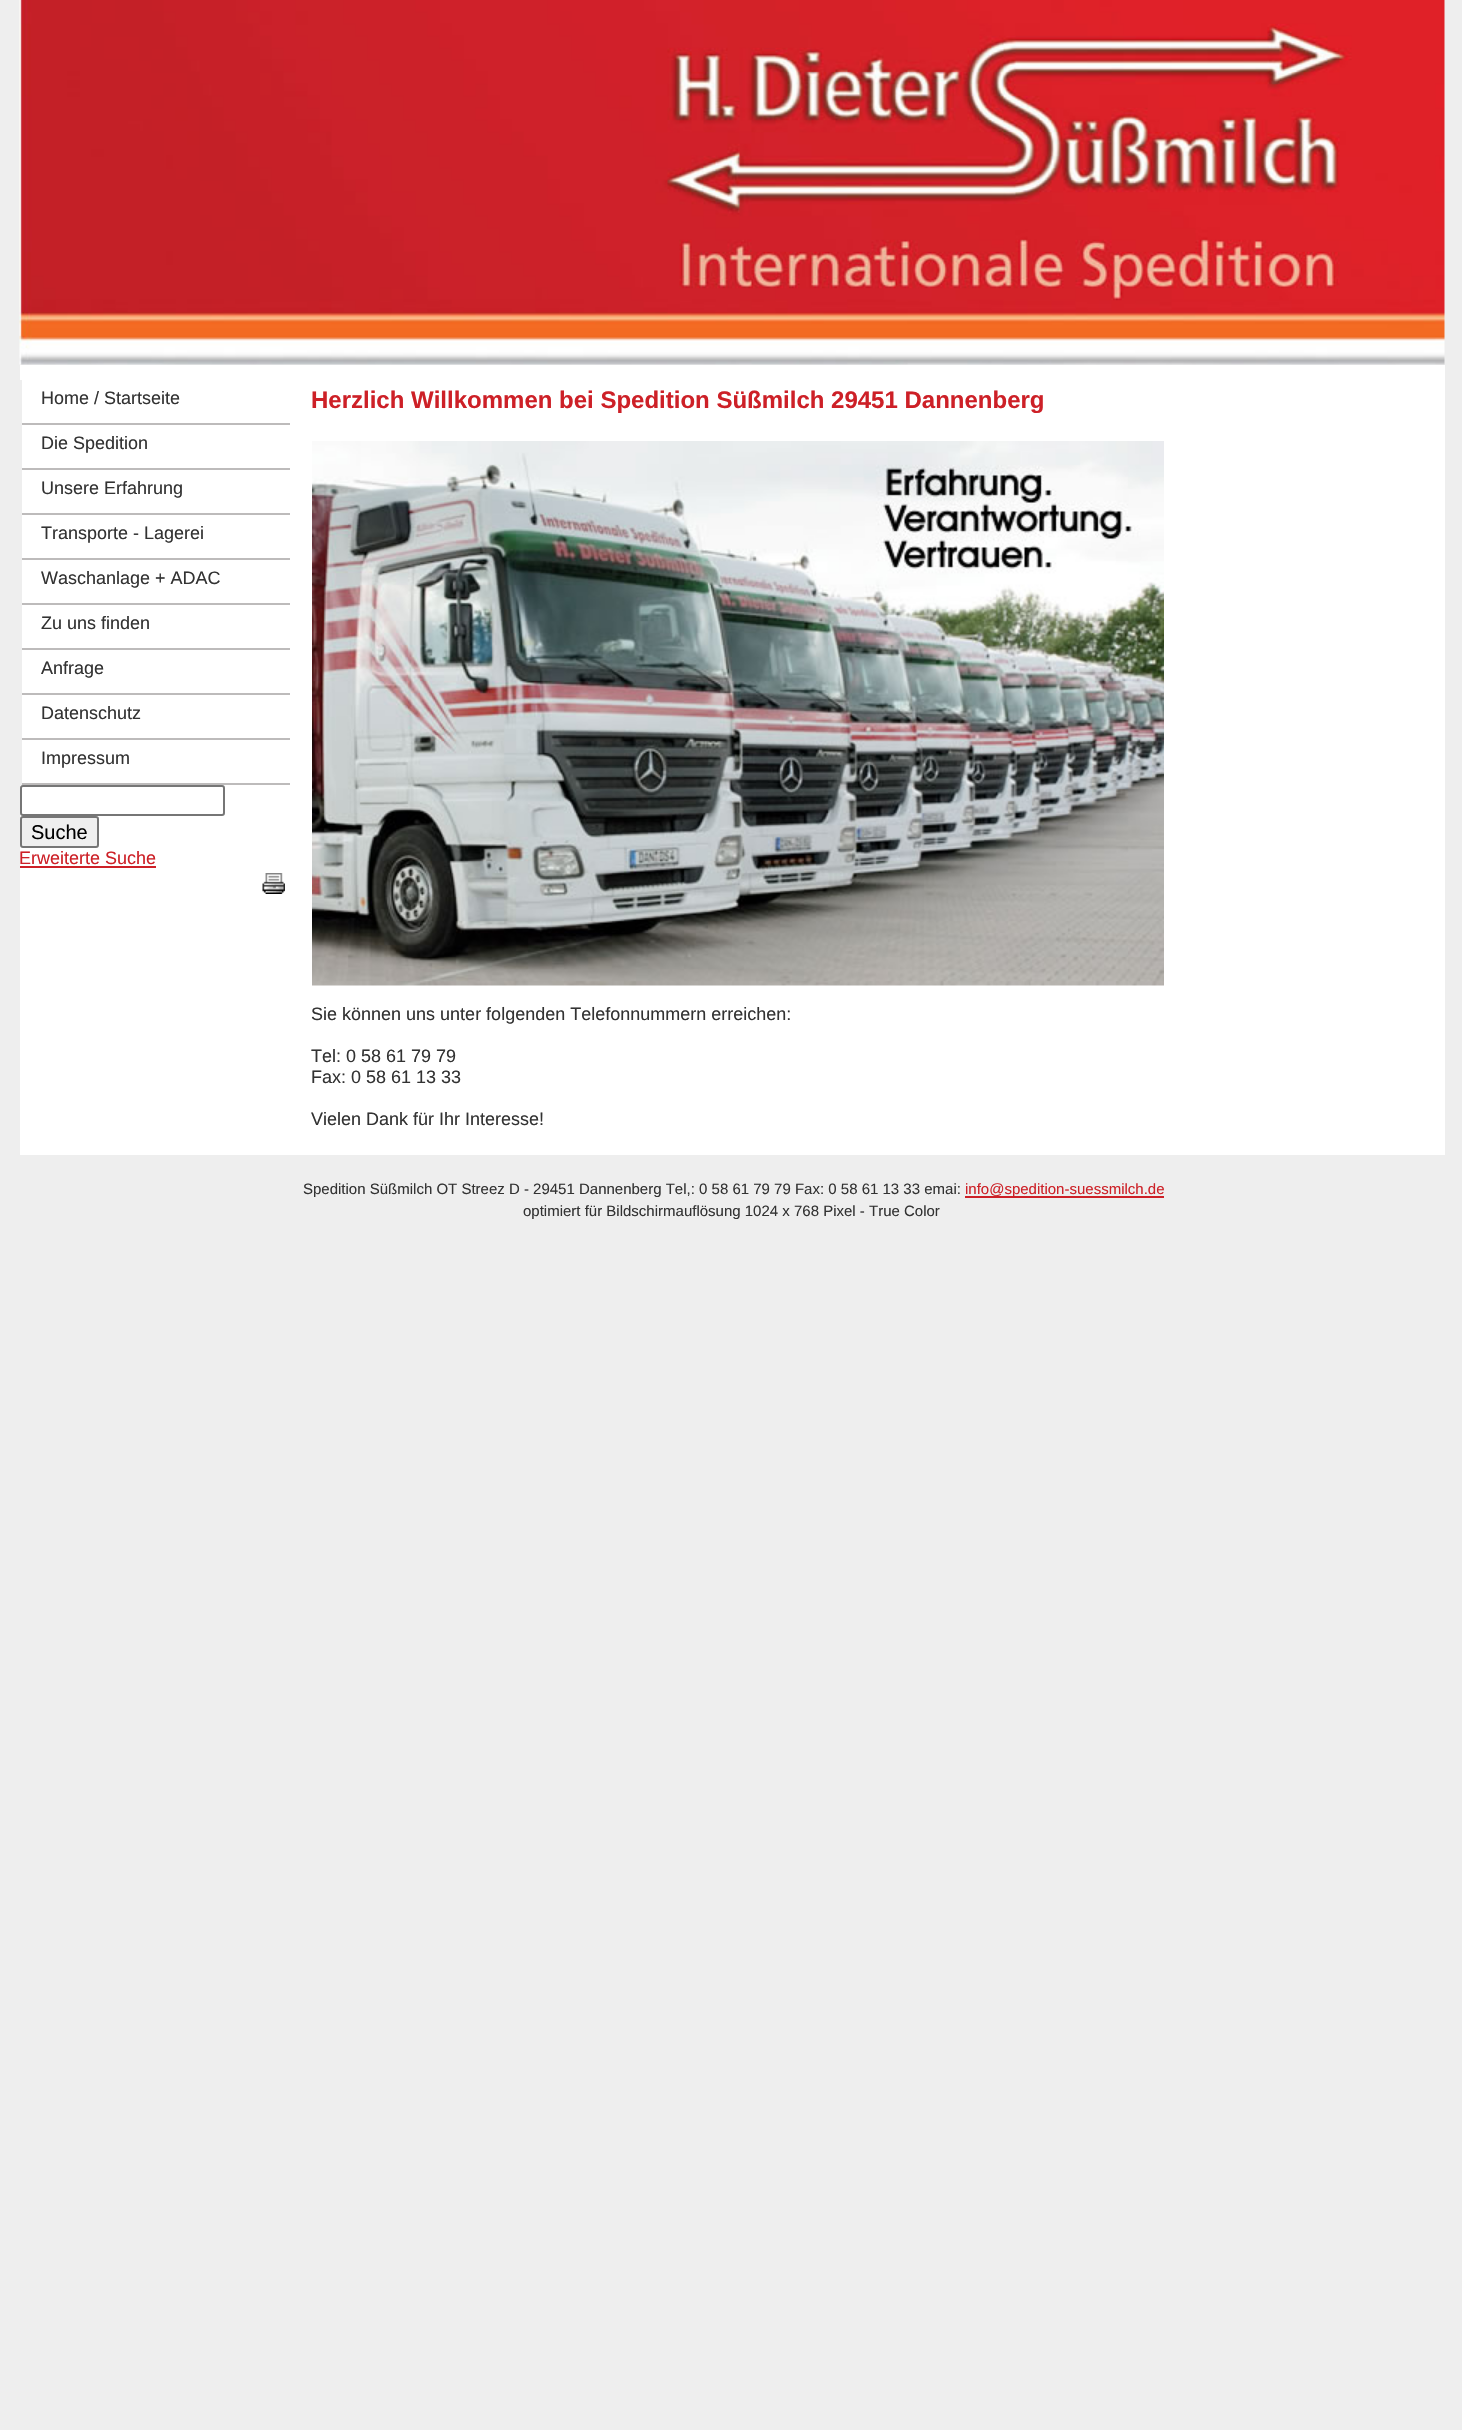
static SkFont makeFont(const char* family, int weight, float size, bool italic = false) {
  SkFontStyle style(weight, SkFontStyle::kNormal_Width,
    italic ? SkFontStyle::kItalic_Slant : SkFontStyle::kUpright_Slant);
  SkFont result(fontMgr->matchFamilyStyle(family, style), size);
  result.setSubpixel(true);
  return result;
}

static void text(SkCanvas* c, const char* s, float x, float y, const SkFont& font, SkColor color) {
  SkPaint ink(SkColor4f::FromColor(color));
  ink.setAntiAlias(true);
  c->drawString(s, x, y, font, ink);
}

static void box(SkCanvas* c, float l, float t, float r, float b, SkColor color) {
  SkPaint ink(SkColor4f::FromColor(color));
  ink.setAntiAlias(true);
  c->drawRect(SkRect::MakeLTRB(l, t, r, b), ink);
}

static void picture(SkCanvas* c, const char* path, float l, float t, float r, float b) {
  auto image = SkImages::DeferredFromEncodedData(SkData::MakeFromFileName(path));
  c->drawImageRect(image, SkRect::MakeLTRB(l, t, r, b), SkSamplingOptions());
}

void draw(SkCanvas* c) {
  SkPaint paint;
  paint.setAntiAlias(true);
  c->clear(0xffeeeeee);
  picture(c, "img_01.png", 19, 0, 1445, 365);
  box(c, 20, 365, 1445, 1155, 0xffffffff);
  box(c, 20, 423, 290, 425, 0xffbdbbbb);
  box(c, 20, 380, 22, 425, 0xffeeeeee);
  SkFont face1 = makeFont("Liberation Sans", 400, 18);
  text(c, "Home / Startseite", 41, 404, face1, 0xff333333);
  box(c, 20, 468, 290, 470, 0xffbdbbbb);
  box(c, 20, 425, 22, 470, 0xffeeeeee);
  text(c, "Die Spedition", 41, 449, face1, 0xff333333);
  box(c, 20, 513, 290, 515, 0xffbdbbbb);
  box(c, 20, 470, 22, 515, 0xffeeeeee);
  text(c, "Unsere Erfahrung", 41, 494, face1, 0xff333333);
  box(c, 20, 558, 290, 560, 0xffbdbbbb);
  box(c, 20, 515, 22, 560, 0xffeeeeee);
  text(c, "Transporte - Lagerei", 41, 539, face1, 0xff333333);
  box(c, 20, 603, 290, 605, 0xffbdbbbb);
  box(c, 20, 560, 22, 605, 0xffeeeeee);
  text(c, "Waschanlage + ADAC", 41, 584, face1, 0xff333333);
  box(c, 20, 648, 290, 650, 0xffbdbbbb);
  box(c, 20, 605, 22, 650, 0xffeeeeee);
  text(c, "Zu uns finden", 41, 629, face1, 0xff333333);
  box(c, 20, 693, 290, 695, 0xffbdbbbb);
  box(c, 20, 650, 22, 695, 0xffeeeeee);
  text(c, "Anfrage", 41, 674, face1, 0xff333333);
  box(c, 20, 738, 290, 740, 0xffbdbbbb);
  box(c, 20, 695, 22, 740, 0xffeeeeee);
  text(c, "Datenschutz", 41, 719, face1, 0xff333333);
  box(c, 20, 783, 290, 785, 0xffbdbbbb);
  box(c, 20, 740, 22, 785, 0xffeeeeee);
  text(c, "Impressum", 41, 764, face1, 0xff333333);
  paint.setStyle(SkPaint::kStroke_Style);
  paint.setStrokeWidth(2);
  paint.setColor(0xff767676);
  c->drawRoundRect(SkRect::MakeLTRB(21, 786, 224, 815), 2, 2, paint);
  paint.setStyle(SkPaint::kFill_Style);
  paint.setColor(0xffefefef);
  c->drawRoundRect(SkRect::MakeLTRB(21, 817, 98, 847), 2, 2, paint);
  paint.setStyle(SkPaint::kStroke_Style);
  paint.setColor(0xff767676);
  c->drawRoundRect(SkRect::MakeLTRB(21, 817, 98, 847), 2, 2, paint);
  SkFont face2 = makeFont("Liberation Sans", 400, 20);
  text(c, "Suche", 31, 839, face2, 0xff000000);
  text(c, "Erweiterte Suche", 19, 864, face1, 0xffcd2027);
  box(c, 20, 866, 156, 868, 0xffcd2027);
  picture(c, "img_02.png", 262, 873, 285, 894);
  SkFont face3 = makeFont("Liberation Sans", 700, 24);
  text(c, "Herzlich Willkommen bei Spedition Süßmilch 29451 Dannenberg", 311, 408, face3, 0xffcd2027);
  picture(c, "img_03.png", 312, 441, 1164, 986);
  text(c, "Sie können uns unter folgenden Telefonnummern erreichen:", 311, 1020, face1, 0xff333333);
  text(c, "Tel: 0 58 61 79 79", 311, 1062, face1, 0xff333333);
  text(c, "Fax: 0 58 61 13 33", 311, 1083, face1, 0xff333333);
  text(c, "Vielen Dank für Ihr Interesse!", 311, 1125, face1, 0xff333333);
  SkFont face4 = makeFont("Liberation Sans", 400, 15);
  text(c, "Spedition Süßmilch OT Streez D - 29451 Dannenberg Tel,: 0 58 61 79 79 Fax: 0 58 61 13 33 emai:", 303, 1194, face4, 0xff333333);
  box(c, 965, 1196, 1164, 1198, 0xffcd2027);
  text(c, "info@spedition-suessmilch.de", 965, 1194, face4, 0xffcd2027);
  text(c, "optimiert für Bildschirmauflösung 1024 x 768 Pixel - True Color", 523, 1216, face4, 0xff333333);
}
